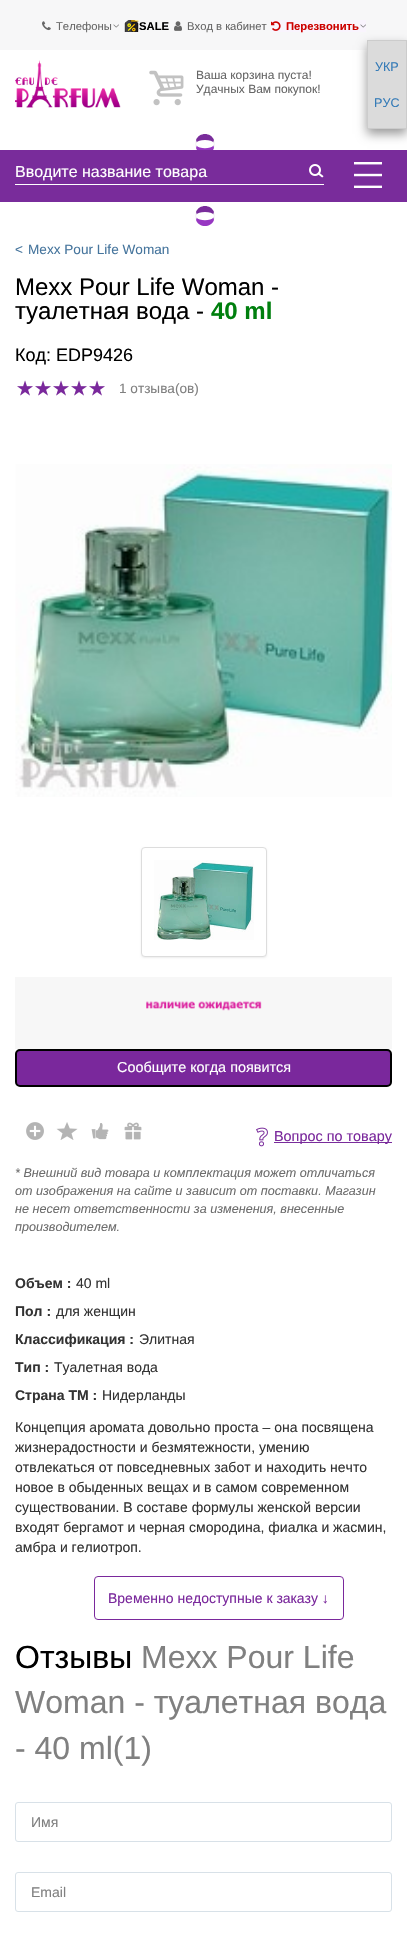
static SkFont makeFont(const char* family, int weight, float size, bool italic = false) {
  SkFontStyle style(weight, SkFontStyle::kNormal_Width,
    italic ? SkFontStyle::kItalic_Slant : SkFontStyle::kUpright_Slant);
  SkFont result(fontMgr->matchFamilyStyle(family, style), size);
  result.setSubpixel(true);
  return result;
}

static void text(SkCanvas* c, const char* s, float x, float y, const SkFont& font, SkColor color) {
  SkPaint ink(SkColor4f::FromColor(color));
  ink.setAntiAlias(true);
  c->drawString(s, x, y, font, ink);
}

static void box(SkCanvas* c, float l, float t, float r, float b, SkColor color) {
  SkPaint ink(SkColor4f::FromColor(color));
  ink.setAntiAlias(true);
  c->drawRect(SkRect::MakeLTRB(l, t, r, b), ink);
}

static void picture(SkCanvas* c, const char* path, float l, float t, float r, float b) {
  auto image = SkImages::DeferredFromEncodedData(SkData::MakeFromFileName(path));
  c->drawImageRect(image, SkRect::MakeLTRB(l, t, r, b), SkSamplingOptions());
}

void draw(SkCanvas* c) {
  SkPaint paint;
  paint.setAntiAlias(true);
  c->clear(0xffffffff);
  box(c, 0, 0, 407, 50, 0xfff7f7f8);
  picture(c, "img_01.png", 113, 24, 119, 28);
  picture(c, "img_02.png", 42, 21, 51, 31);
  SkFont face1 = makeFont("Liberation Sans", 400, 11.25f);
  text(c, "Телефоны", 56, 30, face1, 0xff666666);
  picture(c, "img_03.png", 124, 20, 139, 32);
  SkFont face2 = makeFont("Liberation Sans", 700, 11.25f);
  text(c, "SALE", 139, 30, face2, 0xff000000);
  picture(c, "img_04.png", 174, 21, 182, 31);
  text(c, "Вход в кабинет", 187, 30, face1, 0xff666666);
  box(c, 271, 20, 366, 32, 0xfff9f4fd);
  picture(c, "img_05.png", 360, 24, 366, 28);
  picture(c, "img_06.png", 271, 21, 281, 31);
  text(c, "Перезвонить", 286, 30, face2, 0xffcc0000);
  picture(c, "img_07.png", 15, 60, 121, 108);
  picture(c, "img_08.png", 149, 70, 184, 106);
  SkFont face3 = makeFont("Liberation Sans", 400, 12);
  text(c, "Ваша корзина пуста!", 196, 79, face3, 0xff666666);
  text(c, "Удачных Вам покупок!", 196, 93, face3, 0xff666666);
  paint.setColor(0xff999999);
  paint.setMaskFilter(SkMaskFilter::MakeBlur(kNormal_SkBlurStyle, 5));
  c->drawRect(SkRect::MakeLTRB(367, 45, 407, 134), paint);
  paint.setMaskFilter(nullptr);
  paint.setColor(0xffdbdbdb);
  c->drawRect(SkRect::MakeLTRB(367.5f, 40.5f, 406.5f, 128.5f), paint);
  paint.setStyle(SkPaint::kStroke_Style);
  paint.setStrokeWidth(1);
  paint.setColor(0xffcccccc);
  c->drawRect(SkRect::MakeLTRB(367.5f, 40.5f, 406.5f, 128.5f), paint);
  SkFont face4 = makeFont("Liberation Sans", 400, 12.6f);
  text(c, "УКР", 375, 71, face4, 0xff337ab7);
  text(c, "РУС", 374, 107, face4, 0xff337ab7);
  paint.setStyle(SkPaint::kFill_Style);
  paint.setColor(0xff792c9b);
  c->drawPath(SkPathBuilder().moveTo(205, 140).cubicTo(200.5f, 140, 197.5f, 141, 196.5f, 142.5f).lineTo(196, 140).cubicTo(199, 132, 211, 132, 214, 140).lineTo(213.5f, 142.5f).cubicTo(212.5f, 141, 209.5f, 140, 205, 140).close().detach(), paint);
  paint.setColor(0xfff3f3f3);
  c->drawPath(SkPathBuilder().moveTo(214, 140).cubicTo(215, 142.5f, 215, 145.5f, 214, 148).lineTo(213.5f, 145.5f).cubicTo(214, 144.5f, 214, 143.5f, 213.5f, 142.5f).close().detach(), paint);
  paint.setColor(0xff9737c2);
  c->drawPath(SkPathBuilder().moveTo(214, 148).cubicTo(211, 156, 199, 156, 196, 148).lineTo(196.5f, 145.5f).cubicTo(199, 149, 211, 149, 213.5f, 145.5f).close().detach(), paint);
  paint.setColor(0xfff3f3f3);
  c->drawPath(SkPathBuilder().moveTo(196, 140).cubicTo(195, 142.5f, 195, 145.5f, 196, 148).lineTo(196.5f, 145.5f).cubicTo(196, 144.5f, 196, 143.5f, 196.5f, 142.5f).close().detach(), paint);
  box(c, 0, 150, 407, 202, 0xff792c9b);
  box(c, 15, 184, 324, 185, 0xffffffff);
  SkFont face5 = makeFont("Liberation Sans", 400, 16);
  text(c, "Вводите название товара", 15, 177, face5, 0xffffffff);
  picture(c, "img_09.png", 309, 164, 324, 178);
  picture(c, "img_10.png", 354, 162, 382, 188);
  paint.setColor(0xff792c9b);
  c->drawPath(SkPathBuilder().moveTo(205, 212).cubicTo(200.5f, 212, 197.5f, 213, 196.5f, 214.5f).lineTo(196, 212).cubicTo(199, 204, 211, 204, 214, 212).lineTo(213.5f, 214.5f).cubicTo(212.5f, 213, 209.5f, 212, 205, 212).close().detach(), paint);
  paint.setColor(0xfff3f3f3);
  c->drawPath(SkPathBuilder().moveTo(214, 212).cubicTo(215, 214.5f, 215, 217.5f, 214, 220).lineTo(213.5f, 217.5f).cubicTo(214, 216.5f, 214, 215.5f, 213.5f, 214.5f).close().detach(), paint);
  paint.setColor(0xff9737c2);
  c->drawPath(SkPathBuilder().moveTo(214, 220).cubicTo(211, 228, 199, 228, 196, 220).lineTo(196.5f, 217.5f).cubicTo(199, 221, 211, 221, 213.5f, 217.5f).close().detach(), paint);
  paint.setColor(0xfff3f3f3);
  c->drawPath(SkPathBuilder().moveTo(196, 212).cubicTo(195, 214.5f, 195, 217.5f, 196, 220).lineTo(196.5f, 217.5f).cubicTo(196, 216.5f, 196, 215.5f, 196.5f, 214.5f).close().detach(), paint);
  SkFont face6 = makeFont("Liberation Sans", 400, 13.6f);
  text(c, "<", 15, 254, face6, 0xff46759d);
  text(c, "Mexx Pour Life Woman", 28, 254, face6, 0xff46759d);
  SkFont face7 = makeFont("Liberation Sans", 400, 24);
  text(c, "Mexx Pour Life Woman -", 15, 295, face7, 0xff000000);
  text(c, "туалетная вода -", 15, 319, face7, 0xff000000);
  SkFont face8 = makeFont("Liberation Sans", 700, 24);
  text(c, "40 ml", 211, 319, face8, 0xff007f0e);
  SkFont face9 = makeFont("Liberation Sans", 400, 18);
  text(c, "Код: EDP9426", 15, 361, face9, 0xff000000);
  picture(c, "img_12.png", 17, 381, 33, 396);
  picture(c, "img_11.png", 17, 380, 33, 396);
  picture(c, "img_12.png", 35, 381, 51, 396);
  picture(c, "img_11.png", 35, 380, 51, 396);
  picture(c, "img_12.png", 53, 381, 69, 396);
  picture(c, "img_11.png", 53, 380, 69, 396);
  picture(c, "img_12.png", 71, 381, 87, 396);
  picture(c, "img_11.png", 71, 380, 87, 396);
  picture(c, "img_12.png", 89, 381, 105, 396);
  picture(c, "img_11.png", 89, 380, 105, 396);
  text(c, "1 отзыва(ов)", 119, 393, face6, 0xff808080);
  picture(c, "img_13.png", 15, 464, 392, 797);
  paint.setColor(0x12000000);
  paint.setMaskFilter(SkMaskFilter::MakeBlur(kNormal_SkBlurStyle, 1));
  c->drawRoundRect(SkRect::MakeLTRB(141, 848, 267, 958), 4, 4, paint);
  paint.setMaskFilter(nullptr);
  paint.setColor(0xffffffff);
  c->drawRoundRect(SkRect::MakeLTRB(141.5f, 847.5f, 266.5f, 956.5f), 3.5f, 3.5f, paint);
  paint.setStyle(SkPaint::kStroke_Style);
  paint.setColor(0xffdddddd);
  c->drawRoundRect(SkRect::MakeLTRB(141.5f, 847.5f, 266.5f, 956.5f), 3.5f, 3.5f, paint);
  picture(c, "img_14.png", 154, 860, 254, 940);
  box(c, 15, 977, 392, 1049, 0xfff7f7f7);
  picture(c, "img_15.png", 146, 1001, 262, 1011);
  paint.setStyle(SkPaint::kFill_Style);
  paint.setColor(0xff7a289c);
  c->drawRoundRect(SkRect::MakeLTRB(16, 1050, 391, 1086), 4, 4, paint);
  paint.setStyle(SkPaint::kStroke_Style);
  paint.setStrokeWidth(2);
  paint.setColor(0xff000000);
  c->drawRoundRect(SkRect::MakeLTRB(16, 1050, 391, 1086), 4, 4, paint);
  SkFont face10 = makeFont("Liberation Sans", 400, 14.4f);
  text(c, "Сообщите когда появится", 117, 1072, face10, 0xffffffff);
  picture(c, "img_16.png", 26, 1122, 44, 1140);
  picture(c, "img_17.png", 56, 1122, 78, 1140);
  picture(c, "img_18.png", 91, 1123, 109, 1140);
  picture(c, "img_19.png", 124, 1122, 142, 1140);
  picture(c, "img_20.png", 256, 1127, 268, 1147);
  box(c, 274, 1142, 392, 1143, 0xff792c9b);
  text(c, "Вопрос по товару", 274, 1141, face10, 0xff7a289c);
  SkFont face11 = makeFont("Liberation Sans", 400, 12.6f, true);
  text(c, "* Внешний вид товара и комплектация может отличаться", 15, 1177, face11, 0xff6d6d6d);
  text(c, "от изображения на сайте и зависит от поставки. Магазин", 15, 1195, face11, 0xff6d6d6d);
  text(c, "не несет ответственности за изменения, внесенные", 15, 1213, face11, 0xff6d6d6d);
  text(c, "производителем.", 15, 1231, face11, 0xff6d6d6d);
  SkFont face12 = makeFont("Liberation Sans", 700, 14);
  text(c, "Объем :", 15, 1288, face12, 0xff333333);
  SkFont face13 = makeFont("Liberation Sans", 400, 14);
  text(c, "40 ml", 76, 1288, face13, 0xff333333);
  text(c, "Пол :", 15, 1316, face12, 0xff333333);
  text(c, "для женщин", 56, 1316, face13, 0xff333333);
  text(c, "Классификация :", 15, 1344, face12, 0xff333333);
  text(c, "Элитная", 139, 1344, face13, 0xff333333);
  text(c, "Тип :", 15, 1372, face12, 0xff333333);
  text(c, "Туалетная вода", 54, 1372, face13, 0xff333333);
  text(c, "Страна ТМ :", 15, 1400, face12, 0xff333333);
  text(c, "Нидерланды", 102, 1400, face13, 0xff333333);
  text(c, "Концепция аромата довольно проста – она посвящена", 15, 1432, face13, 0xff333333);
  text(c, "жизнерадостности и безмятежности, умению", 15, 1452, face13, 0xff333333);
  text(c, "отвлекаться от повседневных забот и находить нечто", 15, 1472, face13, 0xff333333);
  text(c, "новое в обыденных вещах и в самом современном", 15, 1492, face13, 0xff333333);
  text(c, "существовании. В составе формулы женской версии", 15, 1512, face13, 0xff333333);
  text(c, "входят бергамот и черная смородина, фиалка и жасмин,", 15, 1532, face13, 0xff333333);
  text(c, "амбра и гелиотроп.", 15, 1552, face13, 0xff333333);
  paint.setStrokeWidth(1);
  paint.setColor(0xff7a289c);
  c->drawRoundRect(SkRect::MakeLTRB(94.5f, 1576.5f, 343.5f, 1619.5f), 3.5f, 3.5f, paint);
  text(c, "Временно недоступные к заказу ↓", 108, 1603, face13, 0xff7a289c);
  SkFont face14 = makeFont("Liberation Sans", 400, 32);
  text(c, "Отзывы", 15, 1668, face14, 0xff000000);
  text(c, "Mexx Pour Life", 141, 1668, face14, 0xff808080);
  text(c, "Woman - туалетная вода", 15, 1713, face14, 0xff808080);
  text(c, "- 40 ml(1)", 15, 1759, face14, 0xff808080);
  paint.setColor(0xffd8e1e8);
  c->drawRoundRect(SkRect::MakeLTRB(15.5f, 1802.5f, 391.5f, 1841.5f), 2.5f, 2.5f, paint);
  text(c, "Имя", 31, 1827, face13, 0xff808080);
  c->drawRoundRect(SkRect::MakeLTRB(15.5f, 1872.5f, 391.5f, 1911.5f), 2.5f, 2.5f, paint);
  text(c, "Email", 31, 1897, face13, 0xff808080);
}
